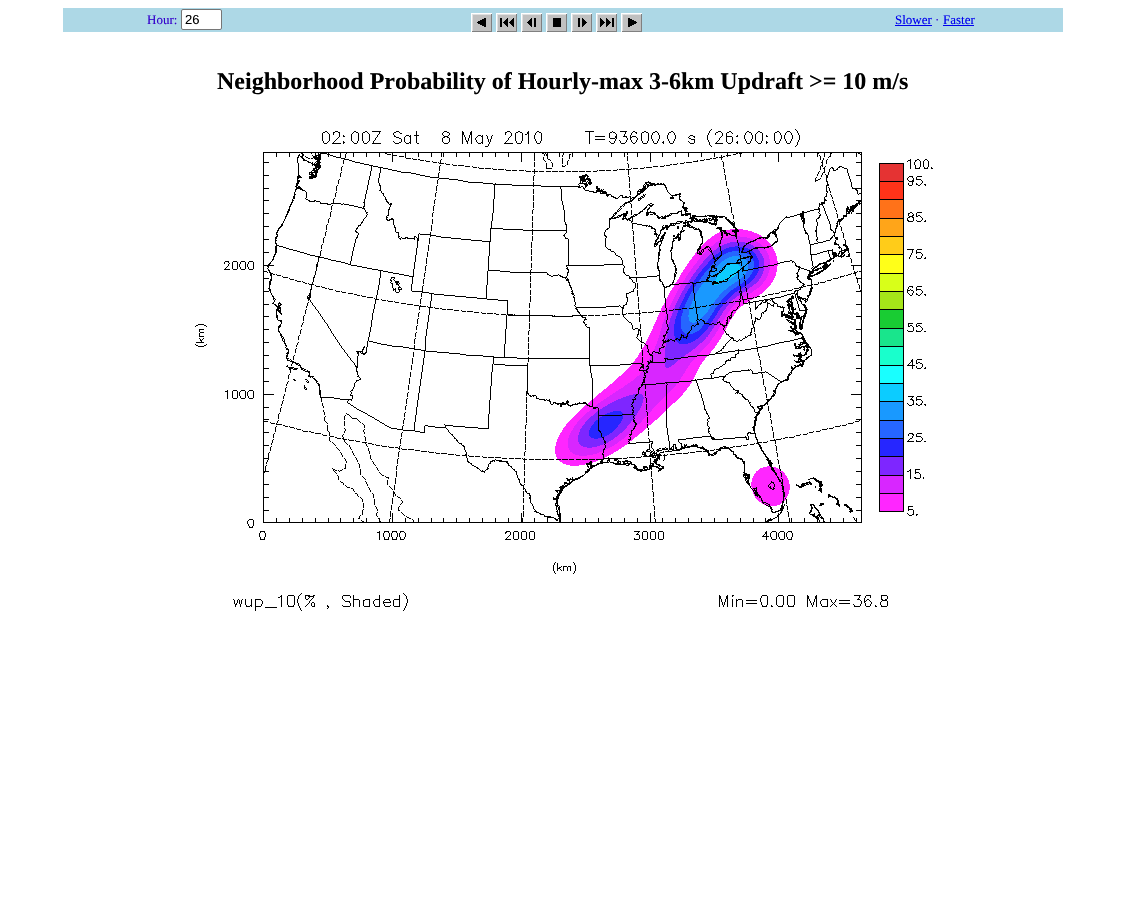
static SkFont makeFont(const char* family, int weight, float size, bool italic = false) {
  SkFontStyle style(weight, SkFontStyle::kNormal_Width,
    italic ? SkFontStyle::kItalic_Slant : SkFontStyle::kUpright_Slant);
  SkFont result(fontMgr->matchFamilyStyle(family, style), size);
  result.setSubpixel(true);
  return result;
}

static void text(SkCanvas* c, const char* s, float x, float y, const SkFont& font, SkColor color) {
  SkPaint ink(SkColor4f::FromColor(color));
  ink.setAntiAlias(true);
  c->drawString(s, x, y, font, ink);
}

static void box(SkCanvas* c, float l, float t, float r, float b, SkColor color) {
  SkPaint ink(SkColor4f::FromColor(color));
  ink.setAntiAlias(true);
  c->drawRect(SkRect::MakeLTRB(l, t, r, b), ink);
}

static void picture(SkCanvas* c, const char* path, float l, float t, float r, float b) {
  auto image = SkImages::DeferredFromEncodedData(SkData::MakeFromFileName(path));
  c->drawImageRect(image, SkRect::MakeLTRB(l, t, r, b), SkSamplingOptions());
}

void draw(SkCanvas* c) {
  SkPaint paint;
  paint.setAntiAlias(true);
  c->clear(0xffffffff);
  box(c, 63, 8, 1063, 32, 0xffadd8e6);
  SkFont face1 = makeFont("Liberation Serif", 400, 13);
  text(c, "Hour:", 147, 24, face1, 0xff3300cc);
  paint.setColor(0xffffffff);
  c->drawRoundRect(SkRect::MakeLTRB(181.5f, 9.5f, 221.5f, 29.5f), 1.5f, 1.5f, paint);
  paint.setStyle(SkPaint::kStroke_Style);
  paint.setStrokeWidth(1);
  paint.setColor(0xff767676);
  c->drawRoundRect(SkRect::MakeLTRB(181.5f, 9.5f, 221.5f, 29.5f), 1.5f, 1.5f, paint);
  SkFont face2 = makeFont("Liberation Sans", 400, 13);
  text(c, "26", 185, 24, face2, 0xff000000);
  picture(c, "img_01.png", 471, 13, 492, 32);
  picture(c, "img_02.png", 496, 13, 517, 32);
  picture(c, "img_03.png", 521, 13, 542, 32);
  picture(c, "img_04.png", 546, 13, 567, 32);
  picture(c, "img_05.png", 571, 13, 592, 32);
  picture(c, "img_06.png", 596, 13, 617, 32);
  picture(c, "img_07.png", 621, 13, 642, 32);
  text(c, "Slower", 895, 24, face1, 0xff0000ee);
  box(c, 895, 25, 932, 26, 0xff0000ee);
  text(c, "·", 935, 24, face1, 0xff3300cc);
  text(c, "Faster", 943, 24, face1, 0xff0000ee);
  box(c, 943, 25, 974, 26, 0xff0000ee);
  SkFont face3 = makeFont("Liberation Serif", 700, 24);
  text(c, "Neighborhood Probability of Hourly-max 3-6km Updraft >= 10 m/s", 217, 89, face3, 0xff000000);
  picture(c, "img_08.png", 195, 129, 933, 611);
}
